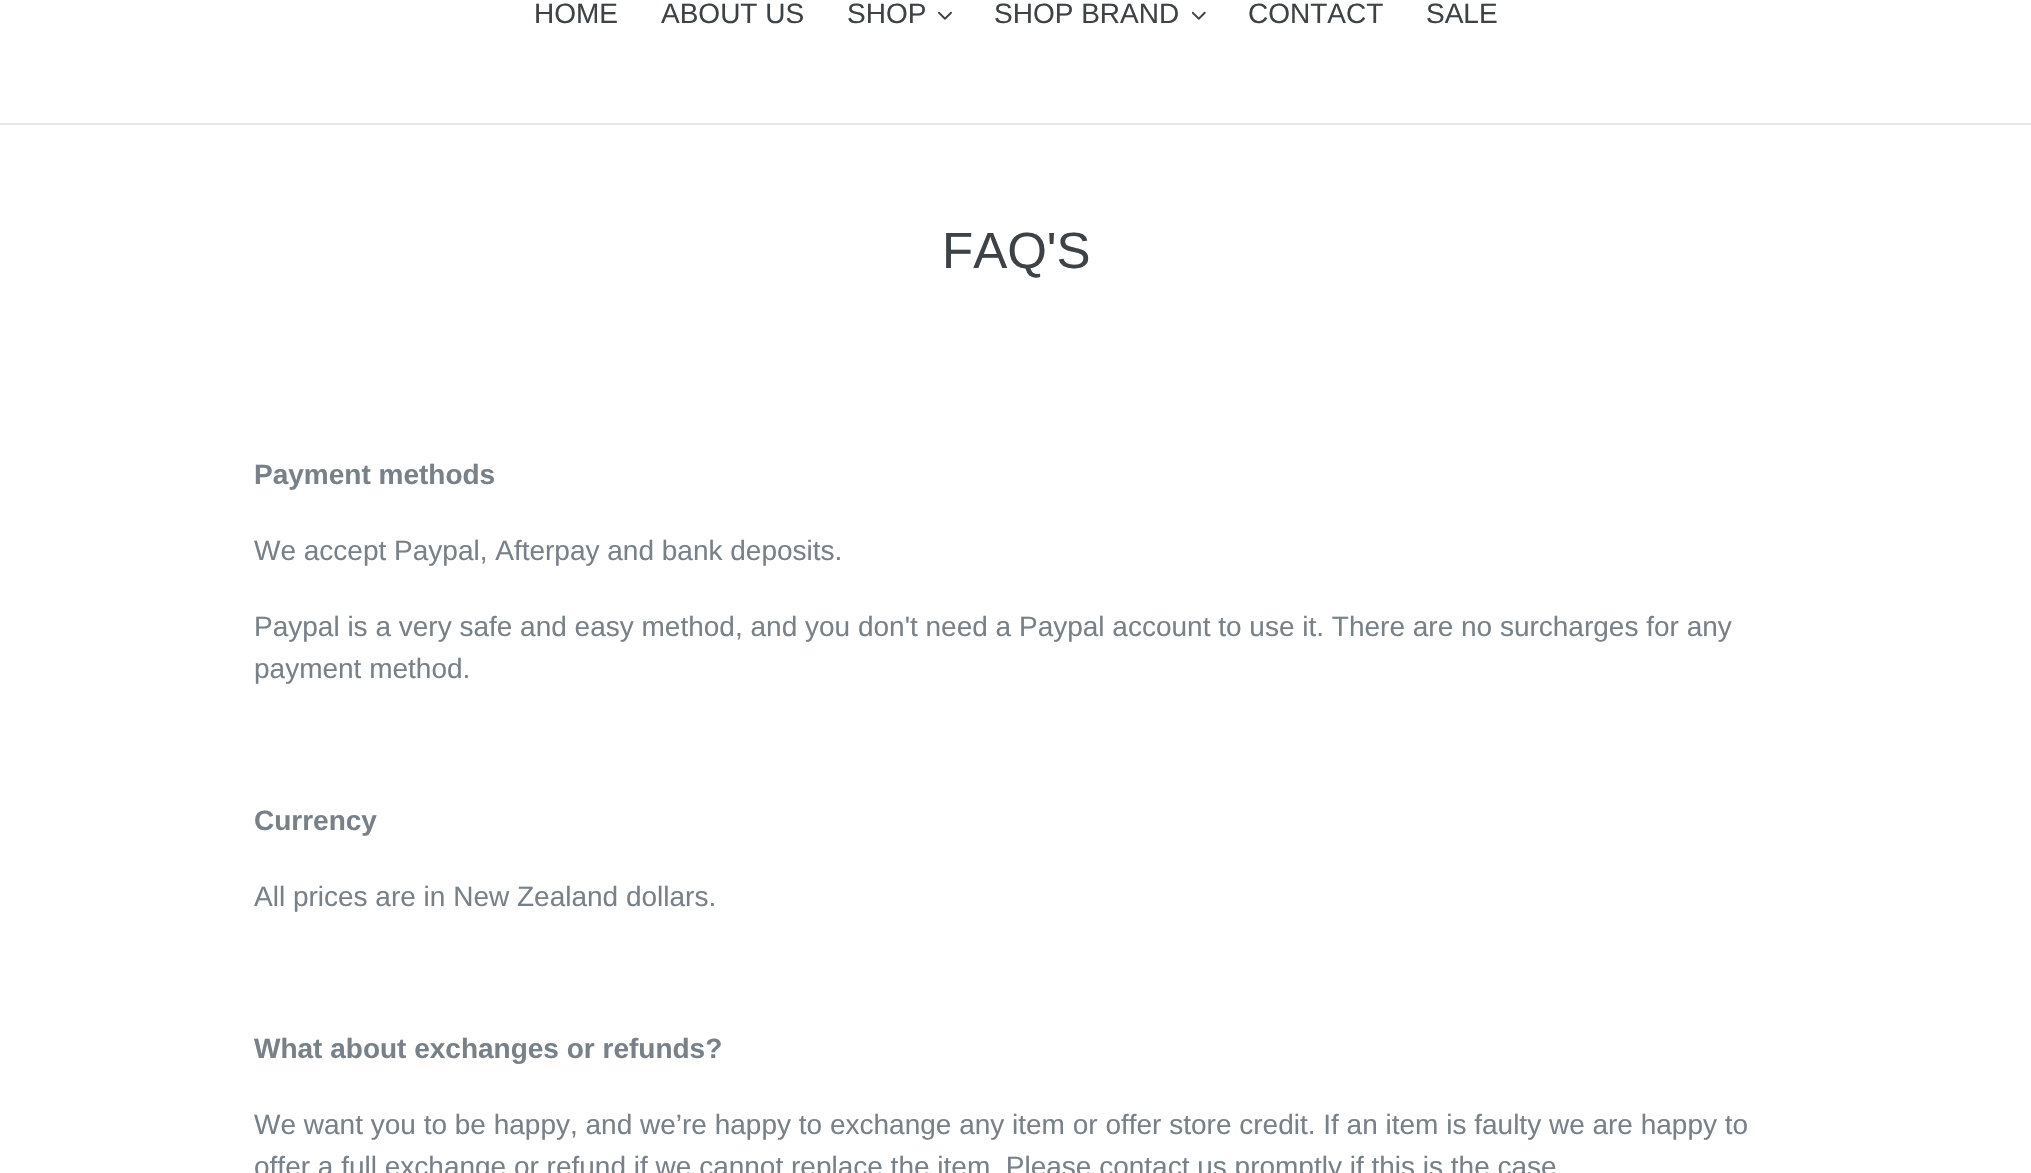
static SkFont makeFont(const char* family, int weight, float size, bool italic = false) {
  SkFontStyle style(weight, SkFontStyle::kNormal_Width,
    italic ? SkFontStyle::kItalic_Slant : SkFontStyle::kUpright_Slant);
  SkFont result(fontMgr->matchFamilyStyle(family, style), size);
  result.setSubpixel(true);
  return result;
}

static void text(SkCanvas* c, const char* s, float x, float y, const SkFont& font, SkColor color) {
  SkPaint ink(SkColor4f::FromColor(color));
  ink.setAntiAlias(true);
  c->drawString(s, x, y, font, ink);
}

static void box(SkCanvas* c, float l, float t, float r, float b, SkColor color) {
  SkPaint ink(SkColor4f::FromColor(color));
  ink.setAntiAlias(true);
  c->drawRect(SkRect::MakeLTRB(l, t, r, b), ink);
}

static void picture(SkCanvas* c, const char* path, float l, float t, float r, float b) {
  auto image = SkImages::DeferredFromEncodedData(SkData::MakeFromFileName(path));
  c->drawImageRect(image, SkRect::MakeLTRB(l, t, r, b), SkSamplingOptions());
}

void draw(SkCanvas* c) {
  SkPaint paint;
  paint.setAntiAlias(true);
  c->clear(0xffffffff);
  box(c, 0, 123, 2031, 125, 0xffe8e9eb);
  SkFont face1 = makeFont("Liberation Sans", 400, 28);
  text(c, "HOME", 534, 23, face1, 0xff3d4246);
  text(c, "ABOUT US", 661, 23, face1, 0xff3d4246);
  text(c, "SHOP", 847, 23, face1, 0xff3d4246);
  picture(c, "img_01.png", 938, 11, 952, 20);
  text(c, "SHOP BRAND", 994, 23, face1, 0xff3d4246);
  picture(c, "img_02.png", 1192, 11, 1206, 20);
  text(c, "CONTACT", 1248, 23, face1, 0xff3d4246);
  text(c, "SALE", 1426, 23, face1, 0xff3d4246);
  SkFont face2 = makeFont("Liberation Sans", 400, 51);
  text(c, "FAQ'S", 942, 268, face2, 0xff3d4246);
  SkFont face3 = makeFont("Liberation Sans", 700, 28);
  text(c, "Payment methods", 254, 484, face3, 0xff788188);
  text(c, "We accept Paypal, Afterpay and bank deposits.", 254, 560, face1, 0xff788188);
  text(c, "Paypal is a very safe and easy method, and you don't need a Paypal account to use it. There are no surcharges for any", 254, 636, face1, 0xff788188);
  text(c, "payment method.", 254, 678, face1, 0xff788188);
  text(c, "Currency", 254, 830, face3, 0xff788188);
  text(c, "All prices are in New Zealand dollars.", 254, 906, face1, 0xff788188);
  text(c, "What about exchanges or refunds?", 254, 1058, face3, 0xff788188);
  text(c, "We want you to be happy, and we’re happy to exchange any item or offer store credit. If an item is faulty we are happy to", 254, 1134, face1, 0xff788188);
  text(c, "offer a full exchange or refund if we cannot replace the item. Please contact us promptly if this is the case", 254, 1176, face1, 0xff788188);
}
